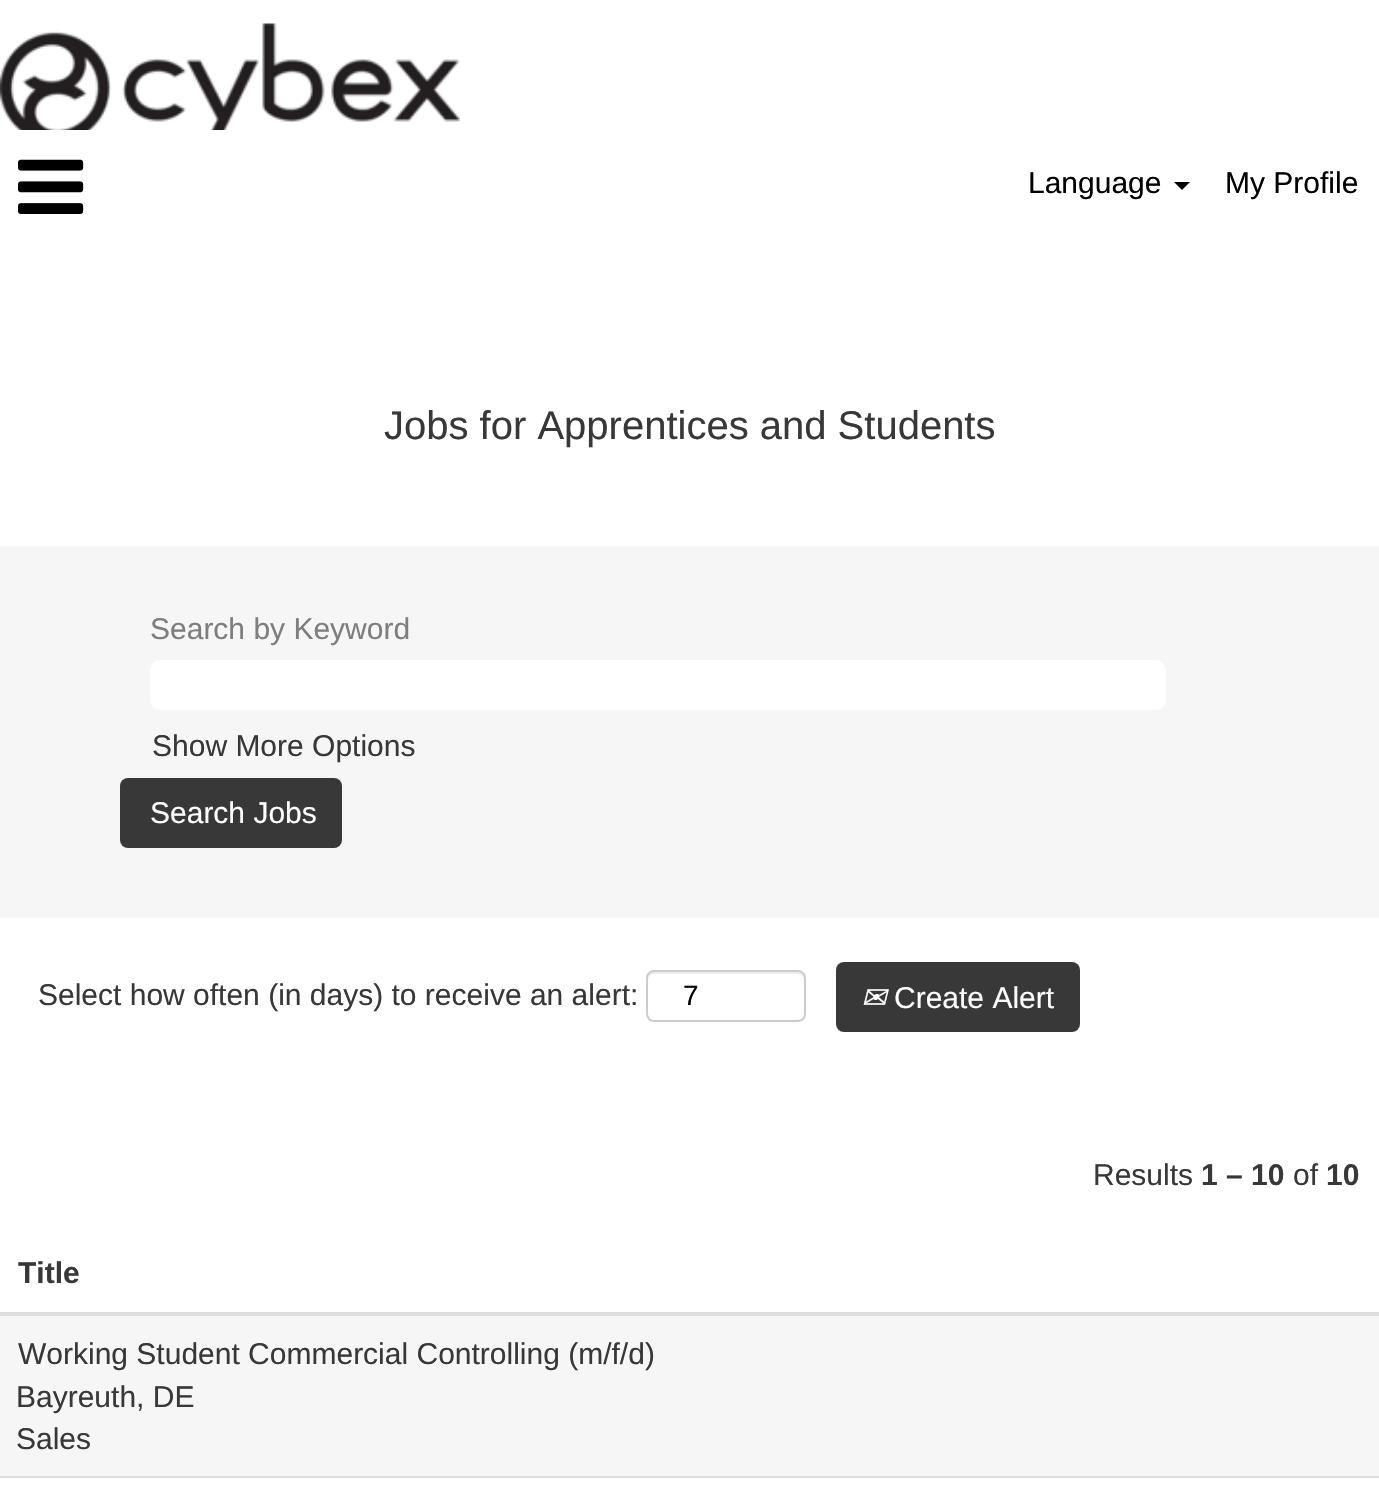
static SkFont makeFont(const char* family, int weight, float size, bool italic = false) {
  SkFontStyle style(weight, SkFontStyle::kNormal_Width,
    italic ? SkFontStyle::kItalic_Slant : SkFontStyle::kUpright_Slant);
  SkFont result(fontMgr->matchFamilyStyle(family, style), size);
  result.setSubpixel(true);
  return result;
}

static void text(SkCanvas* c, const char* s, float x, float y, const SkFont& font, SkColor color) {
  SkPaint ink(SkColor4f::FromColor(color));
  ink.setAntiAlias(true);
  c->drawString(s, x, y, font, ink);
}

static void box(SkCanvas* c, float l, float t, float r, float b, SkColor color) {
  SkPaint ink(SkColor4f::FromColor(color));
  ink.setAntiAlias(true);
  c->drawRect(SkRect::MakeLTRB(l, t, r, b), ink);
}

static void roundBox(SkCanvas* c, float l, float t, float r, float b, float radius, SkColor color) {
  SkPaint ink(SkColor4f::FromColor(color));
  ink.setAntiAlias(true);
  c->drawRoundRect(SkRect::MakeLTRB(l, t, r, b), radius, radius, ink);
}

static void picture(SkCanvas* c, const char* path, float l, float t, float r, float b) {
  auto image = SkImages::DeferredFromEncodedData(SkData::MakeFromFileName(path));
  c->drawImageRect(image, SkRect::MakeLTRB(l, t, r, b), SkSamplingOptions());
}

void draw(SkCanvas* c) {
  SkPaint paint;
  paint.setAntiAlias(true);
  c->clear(0xffffffff);
  picture(c, "img_01.png", 0, 23, 460, 130);
  picture(c, "img_02.png", 18, 159, 84, 214);
  SkFont face1 = makeFont("Liberation Sans", 400, 30);
  text(c, "Language", 1028, 193, face1, 0xff000000);
  paint.setColor(0xff000000);
  c->drawPath(SkPathBuilder().moveTo(1174, 182).lineTo(1190, 182).lineTo(1182, 190).close().detach(), paint);
  text(c, "My Profile", 1225, 193, face1, 0xff000000);
  SkFont face2 = makeFont("Liberation Sans", 400, 40);
  text(c, "Jobs for Apprentices and Students", 384, 439, face2, 0xff383838);
  box(c, 0, 546, 1379, 918, 0xfff6f6f6);
  text(c, "Search by Keyword", 150, 639, face1, 0xff7e7e7e);
  roundBox(c, 150, 660, 1166, 710, 10, 0xffffffff);
  text(c, "Show More Options", 152, 756, face1, 0xff383838);
  roundBox(c, 120, 778, 342, 848, 8, 0xff383838);
  text(c, "Search Jobs", 150, 823, face1, 0xffffffff);
  text(c, "Select how often (in days) to receive an alert:", 38, 1005, face1, 0xff383838);
  paint.setColor(0xffececec);
  c->drawPath(SkPathBuilder().moveTo(654, 974).lineTo(798, 974).cubicTo(801, 974, 804, 977, 804, 980).lineTo(804, 978).cubicTo(804, 975, 801, 972, 798, 972).lineTo(654, 972).cubicTo(651, 972, 648, 975, 648, 978).lineTo(648, 980).cubicTo(648, 977, 651, 974, 654, 974).close().detach(), paint);
  paint.setStyle(SkPaint::kStroke_Style);
  paint.setStrokeWidth(2);
  paint.setColor(0xffcccccc);
  c->drawRoundRect(SkRect::MakeLTRB(647, 971, 805, 1021), 7, 7, paint);
  SkFont face3 = makeFont("Liberation Sans", 400, 28);
  text(c, "7", 683, 1005, face3, 0xff000000);
  roundBox(c, 836, 962, 1080, 1032, 8, 0xff383838);
  SkFont face4 = makeFont("DejaVu Sans", 400, 30, true);
  text(c, "✉", 861, 1008, face4, 0xffffffff);
  text(c, "Create Alert", 894, 1008, face1, 0xffffffff);
  text(c, "Results", 1093, 1185, face1, 0xff383838);
  SkFont face5 = makeFont("Liberation Sans", 700, 30);
  text(c, "1 – 10", 1201, 1185, face5, 0xff383838);
  text(c, "of", 1293, 1185, face1, 0xff383838);
  text(c, "10", 1326, 1185, face5, 0xff383838);
  box(c, 0, 1312, 1379, 1316, 0xffdddddd);
  text(c, "Title", 18, 1283, face5, 0xff383838);
  box(c, 0, 1316, 1379, 1476, 0xfff6f6f6);
  text(c, "Working Student Commercial Controlling (m/f/d)", 18, 1364, face1, 0xff383838);
  text(c, "Bayreuth, DE", 16, 1407, face1, 0xff383838);
  text(c, "Sales", 16, 1449, face1, 0xff383838);
  box(c, 0, 1476, 1379, 1478, 0xffdddddd);
}
